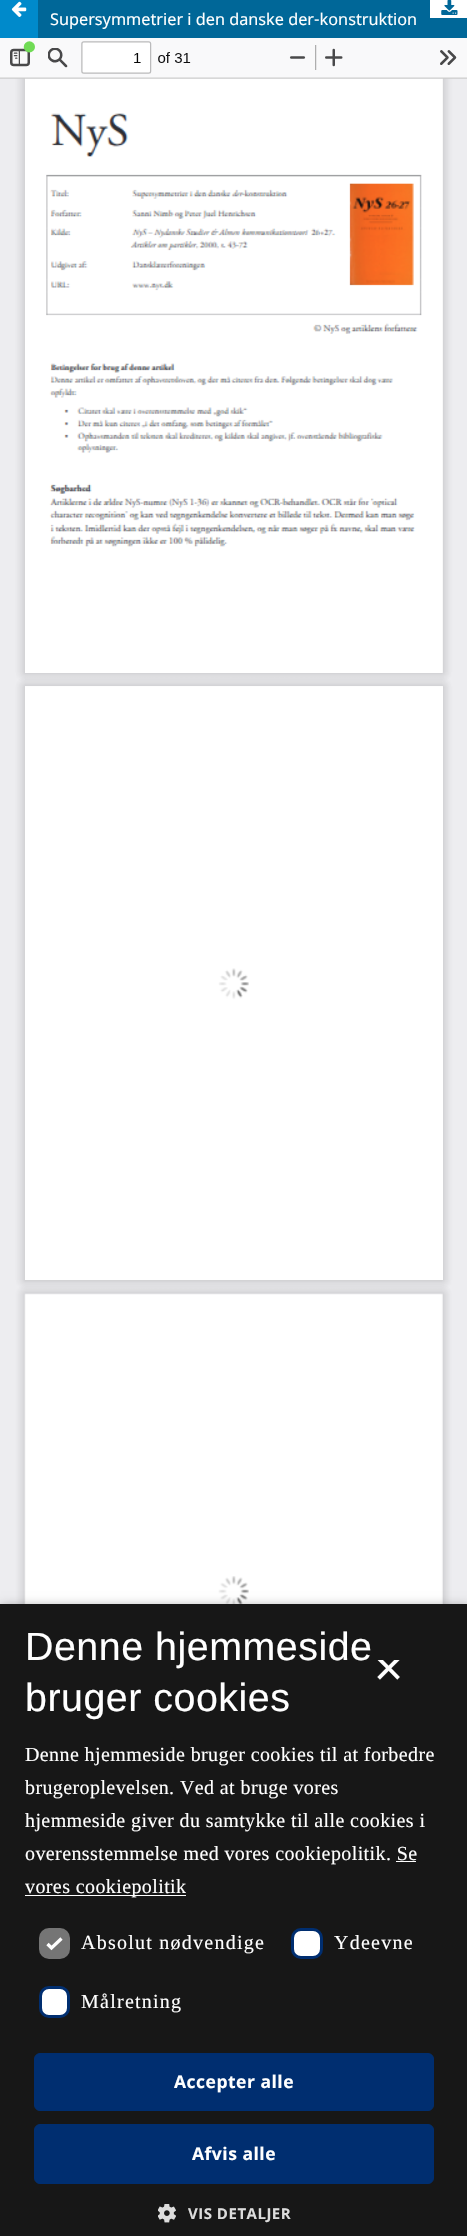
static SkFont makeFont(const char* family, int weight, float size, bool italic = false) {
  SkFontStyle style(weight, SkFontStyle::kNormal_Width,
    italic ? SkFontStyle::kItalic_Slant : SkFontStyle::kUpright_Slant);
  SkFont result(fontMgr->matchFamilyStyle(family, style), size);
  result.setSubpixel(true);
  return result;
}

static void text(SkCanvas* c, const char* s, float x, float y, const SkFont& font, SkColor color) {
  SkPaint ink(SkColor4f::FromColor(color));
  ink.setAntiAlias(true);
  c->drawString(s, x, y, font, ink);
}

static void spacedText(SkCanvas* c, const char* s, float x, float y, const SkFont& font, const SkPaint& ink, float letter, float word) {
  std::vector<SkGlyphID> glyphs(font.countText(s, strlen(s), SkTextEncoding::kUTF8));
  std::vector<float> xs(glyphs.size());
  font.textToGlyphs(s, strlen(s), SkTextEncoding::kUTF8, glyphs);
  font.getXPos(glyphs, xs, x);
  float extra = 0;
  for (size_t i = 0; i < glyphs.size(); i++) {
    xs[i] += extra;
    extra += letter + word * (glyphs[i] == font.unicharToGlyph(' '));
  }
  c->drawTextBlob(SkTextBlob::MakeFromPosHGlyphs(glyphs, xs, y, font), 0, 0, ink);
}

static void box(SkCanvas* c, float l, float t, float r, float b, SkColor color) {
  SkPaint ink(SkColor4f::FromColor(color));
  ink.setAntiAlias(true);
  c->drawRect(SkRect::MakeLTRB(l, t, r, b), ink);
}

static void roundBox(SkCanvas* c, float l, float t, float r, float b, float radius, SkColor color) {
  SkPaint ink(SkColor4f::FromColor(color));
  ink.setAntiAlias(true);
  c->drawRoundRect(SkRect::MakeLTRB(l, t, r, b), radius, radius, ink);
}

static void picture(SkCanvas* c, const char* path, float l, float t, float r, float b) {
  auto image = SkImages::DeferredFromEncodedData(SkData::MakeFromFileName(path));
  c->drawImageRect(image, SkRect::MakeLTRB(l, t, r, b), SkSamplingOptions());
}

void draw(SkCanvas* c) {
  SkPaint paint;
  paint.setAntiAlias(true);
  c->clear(0xffffffff);
  box(c, 38, 0, 467, 38, 0xff006798);
  box(c, 0, 0, 38, 38, 0xff008acb);
  picture(c, "img_01.png", 11, 1, 27, 17);
  box(c, 430, 0, 467, 18, 0xffffffff);
  picture(c, "img_02.png", 441, 0, 458, 15);
  SkFont face1 = makeFont("Noto Sans", 400, 16.25f);
  text(c, "Supersymmetrier i den danske der-konstruktion", 50, 25, face1, 0xffffffff);
  picture(c, "img_03.png", 0, 38, 467, 1604);
  paint.setColor(0x59000000);
  paint.setMaskFilter(SkMaskFilter::MakeBlur(kNormal_SkBlurStyle, 5));
  c->drawRect(SkRect::MakeLTRB(1, 1606, 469, 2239), paint);
  paint.setMaskFilter(nullptr);
  box(c, 0, 1604, 467, 2236, 0xff171717);
  SkFont face2 = makeFont("Liberation Sans", 400, 39.4f);
  paint.setColor(0xffffffff);
  spacedText(c, "Denne hjemmeside", 25, 1660, face2, paint, 0.5f, 0);
  spacedText(c, "bruger cookies", 25, 1711, face2, paint, 0.5f, 0);
  c->save();
  c->clipRect(SkRect::MakeLTRB(374, 1660, 411, 1698));
  SkFont face3 = makeFont("Liberation Sans", 400, 50);
  text(c, "×", 374, 1685, face3, 0xffffffff);
  c->restore();
  SkFont face4 = makeFont("Liberation Serif", 400, 20);
  spacedText(c, "Denne hjemmeside bruger cookies til at forbedre", 25, 1761, face4, paint, 0.4f, 0);
  spacedText(c, "brugeroplevelsen. Ved at bruge vores", 25, 1794, face4, paint, 0.4f, 0);
  spacedText(c, "hjemmeside giver du samtykke til alle cookies i", 25, 1827, face4, paint, 0.4f, 0);
  spacedText(c, "overensstemmelse med vores cookiepolitik. Se", 25, 1860, face4, paint, 0.4f, 0);
  box(c, 25, 1895, 186, 1896, 0xffffffff);
  spacedText(c, "vores cookiepolitik", 25, 1893, face4, paint, 0.4f, 0);
  box(c, 396, 1861, 416, 1862, 0xffffffff);
  roundBox(c, 39, 1928, 70, 1959, 10, 0xff757575);
  paint.setStyle(SkPaint::kStroke_Style);
  paint.setStrokeWidth(3.3f);
  c->drawPath(SkPathBuilder().moveTo(47.5f, 1944).lineTo(51.5f, 1948).lineTo(61.5f, 1938.5f).detach(), paint);
  paint.setStyle(SkPaint::kFill_Style);
  spacedText(c, "Absolut nødvendige", 81, 1949, face4, paint, 1.25f, 0);
  c->drawRoundRect(SkRect::MakeLTRB(292.5f, 1929.5f, 321.5f, 1957.5f), 8.5f, 8.5f, paint);
  paint.setStyle(SkPaint::kStroke_Style);
  paint.setStrokeWidth(3);
  paint.setColor(0xff002e70);
  c->drawRoundRect(SkRect::MakeLTRB(292.5f, 1929.5f, 321.5f, 1957.5f), 8.5f, 8.5f, paint);
  paint.setStyle(SkPaint::kFill_Style);
  paint.setColor(0xffffffff);
  spacedText(c, "Ydeevne", 334, 1949, face4, paint, 1.25f, 0);
  c->drawRoundRect(SkRect::MakeLTRB(40.5f, 1987.5f, 68.5f, 2016.5f), 8.5f, 8.5f, paint);
  paint.setStyle(SkPaint::kStroke_Style);
  paint.setColor(0xff002e70);
  c->drawRoundRect(SkRect::MakeLTRB(40.5f, 1987.5f, 68.5f, 2016.5f), 8.5f, 8.5f, paint);
  paint.setStyle(SkPaint::kFill_Style);
  paint.setColor(0xffffffff);
  spacedText(c, "Målretning", 81, 2008, face4, paint, 1.25f, 0);
  paint.setColor(0xff002e70);
  c->drawRoundRect(SkRect::MakeLTRB(34.5f, 2053.5f, 433.5f, 2110.5f), 5.5f, 5.5f, paint);
  paint.setStyle(SkPaint::kStroke_Style);
  paint.setStrokeWidth(1);
  c->drawRoundRect(SkRect::MakeLTRB(34.5f, 2053.5f, 433.5f, 2110.5f), 5.5f, 5.5f, paint);
  SkFont face5 = makeFont("Open Sans", 700, 17.5f);
  paint.setStyle(SkPaint::kFill_Style);
  paint.setColor(0xffffffff);
  spacedText(c, "Accepter alle", 174, 2088, face5, paint, 0.5f, 0);
  paint.setColor(0xff002e70);
  c->drawRoundRect(SkRect::MakeLTRB(34.5f, 2124.5f, 433.5f, 2183.5f), 5.5f, 5.5f, paint);
  paint.setStyle(SkPaint::kStroke_Style);
  c->drawRoundRect(SkRect::MakeLTRB(34.5f, 2124.5f, 433.5f, 2183.5f), 5.5f, 5.5f, paint);
  paint.setStyle(SkPaint::kFill_Style);
  paint.setColor(0xffffffff);
  spacedText(c, "Afvis alle", 192, 2160, face5, paint, 0.5f, 0);
  picture(c, "img_04.png", 158, 2204, 176, 2223);
  SkFont face6 = makeFont("Open Sans", 700, 15);
  paint.setColor(0xffdcdcdc);
  spacedText(c, "VIS DETALJER", 188, 2219, face6, paint, 0.5f, 0);
}
